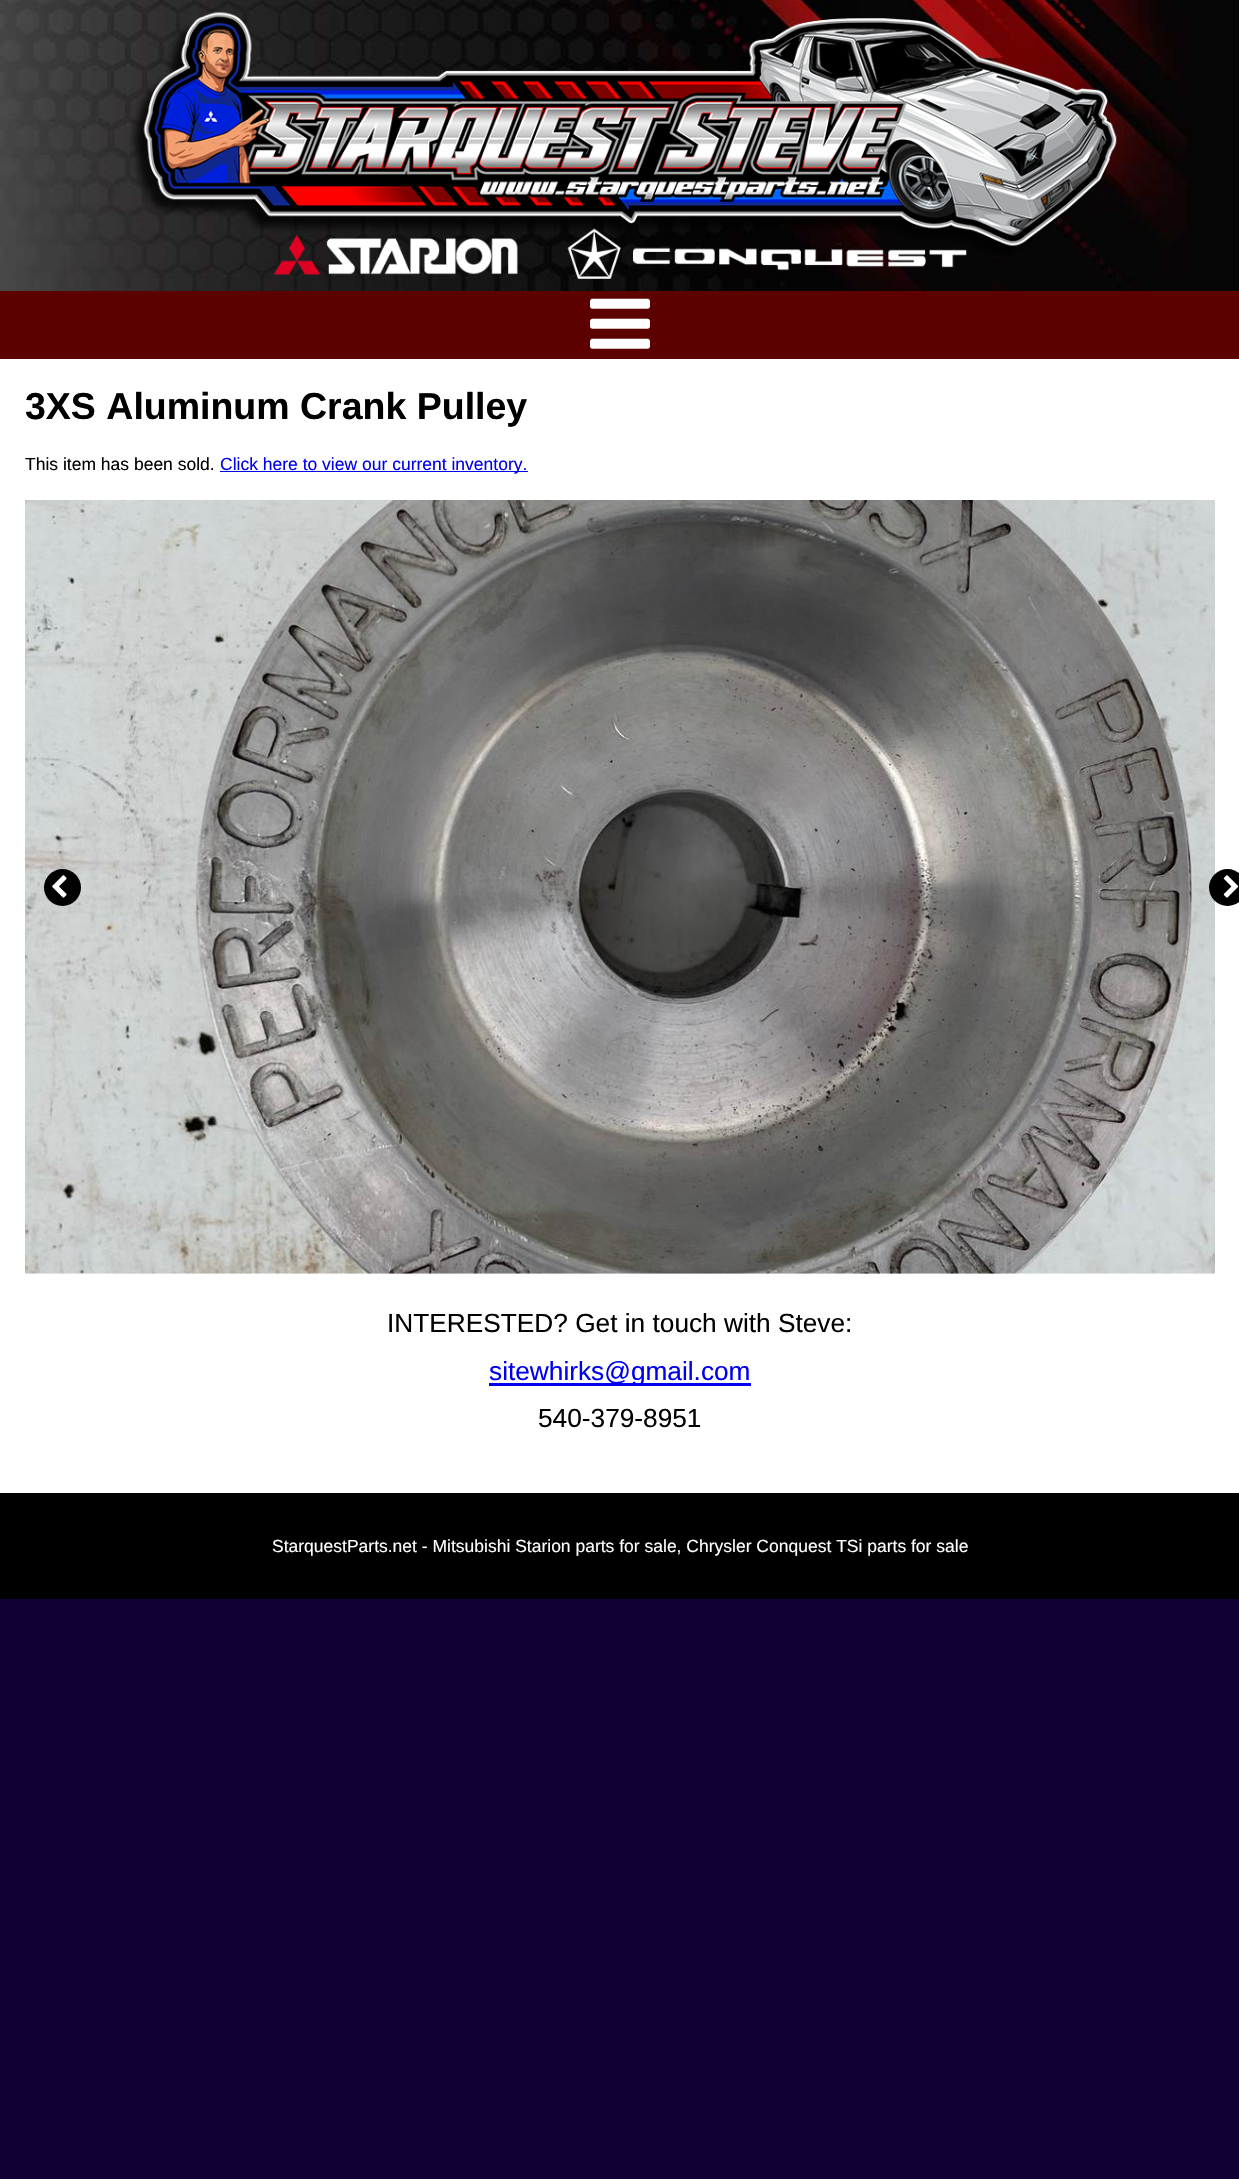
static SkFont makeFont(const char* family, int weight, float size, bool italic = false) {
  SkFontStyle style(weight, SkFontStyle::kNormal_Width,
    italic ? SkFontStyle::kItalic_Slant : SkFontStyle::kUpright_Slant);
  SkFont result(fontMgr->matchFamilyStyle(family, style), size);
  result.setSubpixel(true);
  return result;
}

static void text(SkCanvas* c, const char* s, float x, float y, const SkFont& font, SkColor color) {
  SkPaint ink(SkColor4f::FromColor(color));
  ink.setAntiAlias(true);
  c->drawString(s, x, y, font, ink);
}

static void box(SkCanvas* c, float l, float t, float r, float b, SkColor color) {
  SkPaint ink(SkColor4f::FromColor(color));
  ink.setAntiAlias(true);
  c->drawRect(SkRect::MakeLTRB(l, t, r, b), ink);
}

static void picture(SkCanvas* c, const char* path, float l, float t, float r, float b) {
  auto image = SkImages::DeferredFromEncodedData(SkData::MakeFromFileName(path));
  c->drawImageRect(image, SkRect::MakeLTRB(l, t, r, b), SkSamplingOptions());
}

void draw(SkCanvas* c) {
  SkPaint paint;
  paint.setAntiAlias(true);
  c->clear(0xff110033);
  picture(c, "img_01.png", 0, 0, 1239, 291);
  picture(c, "img_02.png", 129, 12, 1117, 256);
  picture(c, "img_03.png", 273, 234, 518, 275);
  picture(c, "img_04.png", 567, 228, 967, 279);
  box(c, 0, 291, 1239, 359, 0xff5c0100);
  picture(c, "img_05.png", 590, 298, 650, 349);
  box(c, 0, 359, 1239, 1493, 0xffffffff);
  SkFont face1 = makeFont("Liberation Sans", 700, 37.5f);
  text(c, "3XS Aluminum Crank Pulley", 25, 419, face1, 0xff000000);
  SkFont face2 = makeFont("Liberation Sans", 400, 17.5f);
  text(c, "This item has been sold.", 25, 470, face2, 0xff000000);
  box(c, 220, 471, 528, 472, 0xff0000ee);
  text(c, "Click here to view our current inventory.", 220, 470, face2, 0xff0000ee);
  picture(c, "img_06.png", 25, 500, 1215, 1274);
  paint.setColor(0xff000000);
  c->drawCircle(62.5f, 887.5f, 18.5f, paint);
  picture(c, "img_07.png", 52, 875, 67, 898);
  c->drawCircle(1227.5f, 887.5f, 18.5f, paint);
  picture(c, "img_08.png", 1223, 875, 1239, 898);
  SkFont face3 = makeFont("Liberation Sans", 400, 26.25f);
  text(c, "INTERESTED? Get in touch with Steve:", 387, 1332, face3, 0xff000000);
  box(c, 489, 1383, 751, 1386, 0xff0000ee);
  text(c, "sitewhirks@gmail.com", 489, 1380, face3, 0xff0000ee);
  text(c, "540-379-8951", 538, 1427, face3, 0xff000000);
  box(c, 0, 1493, 1239, 1599, 0xff000000);
  text(c, "StarquestParts.net - Mitsubishi Starion parts for sale, Chrysler Conquest TSi parts for sale", 272, 1552, face2, 0xffffffff);
}
